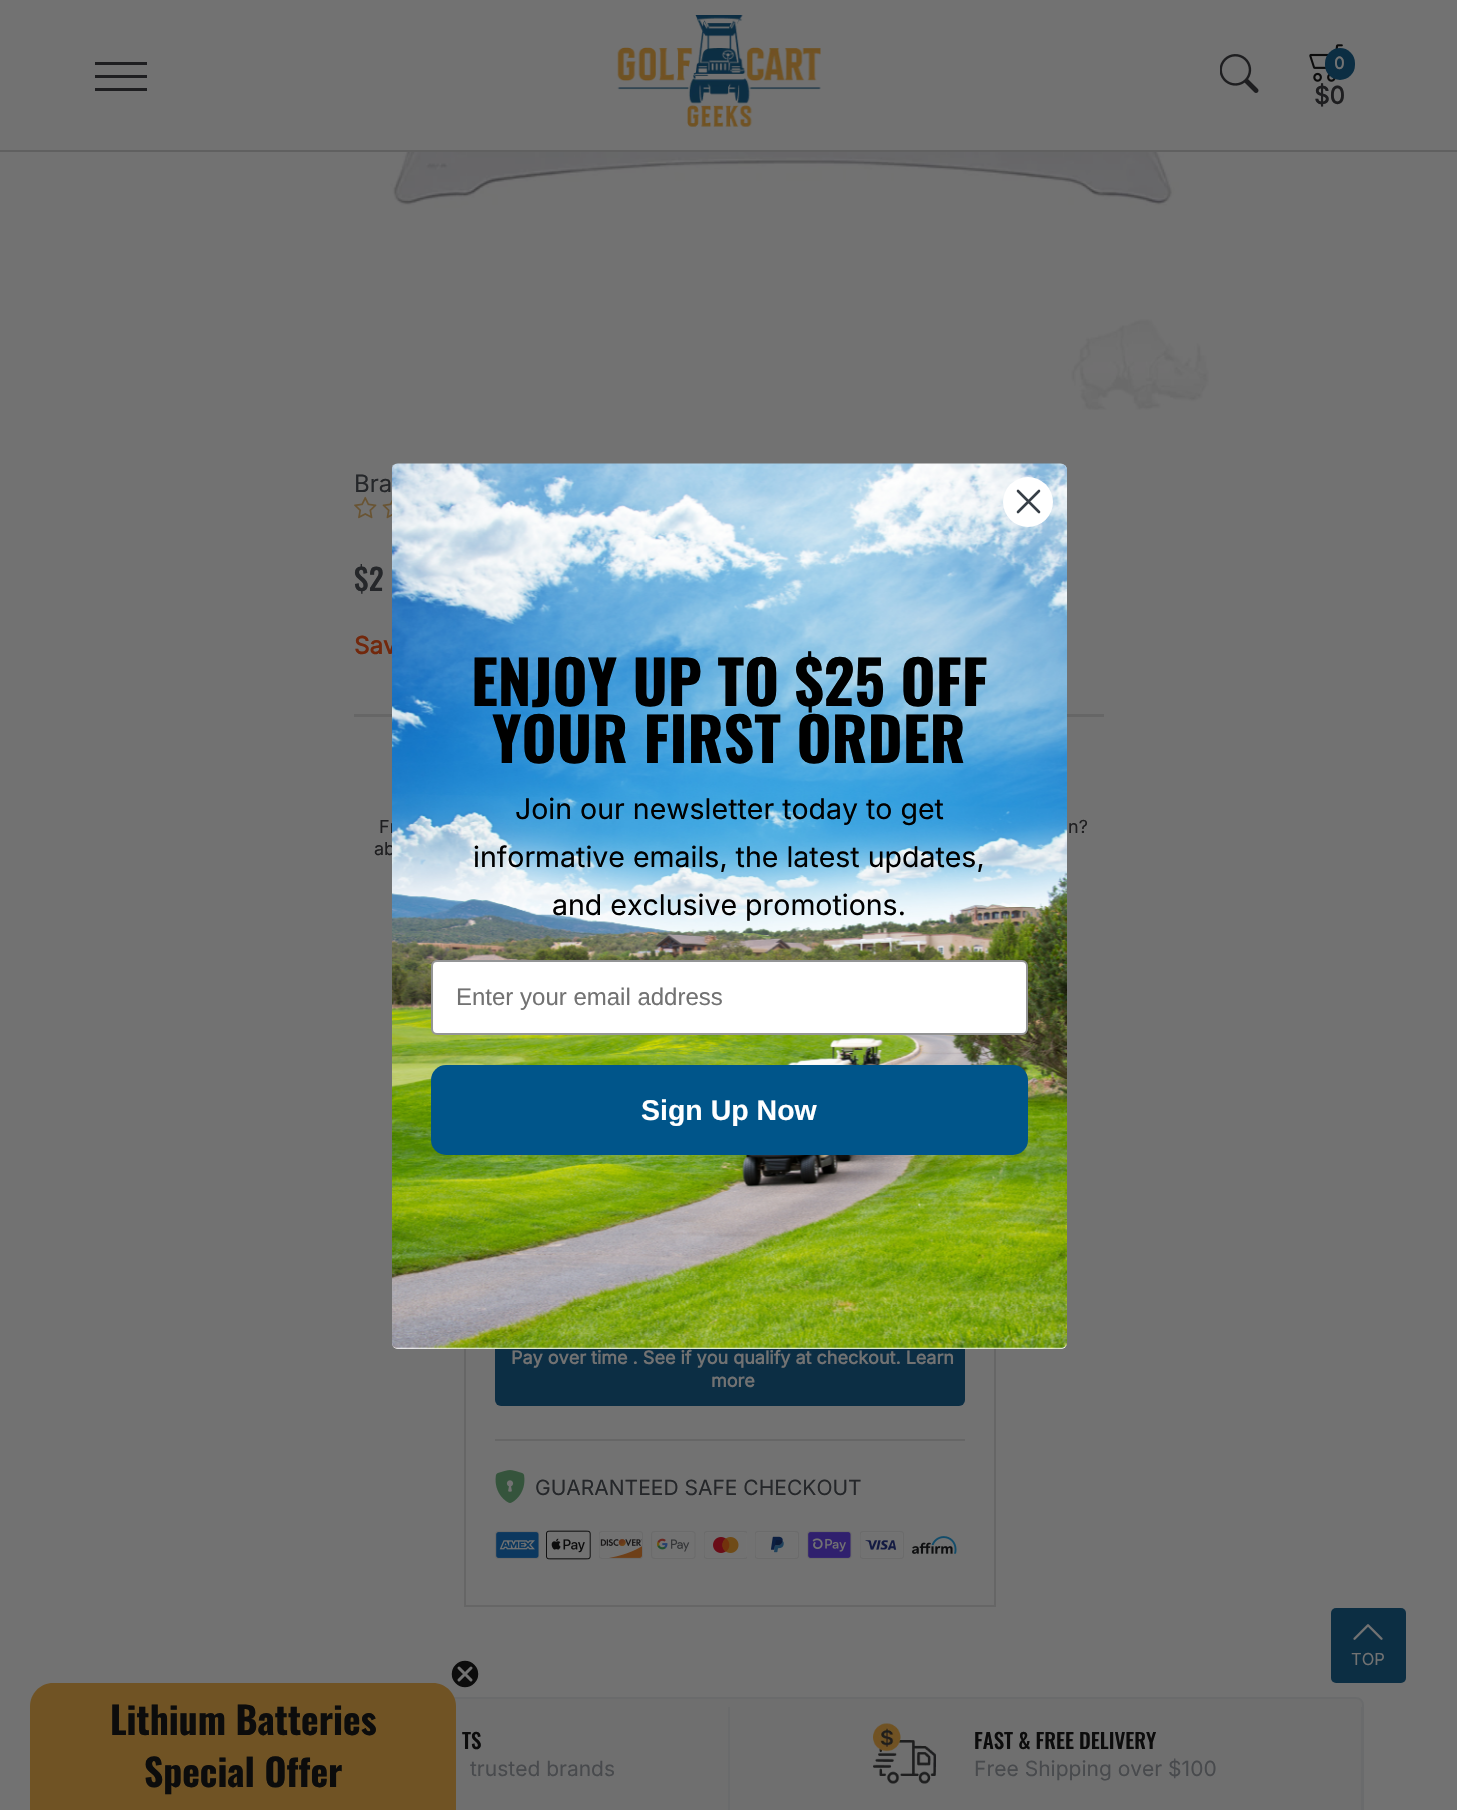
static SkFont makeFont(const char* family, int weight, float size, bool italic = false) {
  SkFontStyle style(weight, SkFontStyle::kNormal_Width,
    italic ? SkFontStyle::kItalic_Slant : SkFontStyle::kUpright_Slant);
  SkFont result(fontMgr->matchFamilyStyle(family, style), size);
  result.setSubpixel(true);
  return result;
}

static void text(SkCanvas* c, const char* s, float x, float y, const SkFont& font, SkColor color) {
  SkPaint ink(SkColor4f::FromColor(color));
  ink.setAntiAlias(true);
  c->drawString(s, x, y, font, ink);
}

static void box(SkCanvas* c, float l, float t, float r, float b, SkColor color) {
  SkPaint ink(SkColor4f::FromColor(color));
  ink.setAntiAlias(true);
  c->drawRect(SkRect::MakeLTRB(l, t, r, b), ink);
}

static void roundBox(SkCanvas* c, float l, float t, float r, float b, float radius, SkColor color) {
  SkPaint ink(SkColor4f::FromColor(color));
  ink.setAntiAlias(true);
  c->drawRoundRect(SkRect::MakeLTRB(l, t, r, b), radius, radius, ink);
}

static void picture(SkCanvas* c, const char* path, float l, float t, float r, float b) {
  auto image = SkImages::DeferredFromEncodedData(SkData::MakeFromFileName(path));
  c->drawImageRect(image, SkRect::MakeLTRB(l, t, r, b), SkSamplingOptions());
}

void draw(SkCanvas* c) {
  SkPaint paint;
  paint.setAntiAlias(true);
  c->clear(0xff727272);
  box(c, 0, 150, 1457, 152, 0xff606060);
  box(c, 95, 62, 147, 65, 0xff1e1e20);
  box(c, 95, 75, 147, 78, 0xff1e1e20);
  box(c, 95, 88, 147, 91, 0xff1e1e20);
  picture(c, "img_01.png", 617, 15, 821, 127);
  picture(c, "img_02.png", 1220, 54, 1259, 93);
  picture(c, "img_03.png", 1309, 44, 1343, 82);
  roundBox(c, 1325, 48, 1355, 80, 15, 0xff0c2e43);
  SkFont face1 = makeFont("Inter", 700, 16.5f);
  text(c, "0", 1334, 69, face1, 0xff727272);
  SkFont face2 = makeFont("Inter", 700, 24);
  text(c, "$0", 1314, 104, face2, 0xff1e1e20);
  picture(c, "img_04.png", 368, 152, 1209, 410);
  SkFont face3 = makeFont("Inter", 400, 24);
  text(c, "Bra", 354, 492, face3, 0xff25272a);
  picture(c, "img_05.png", 354, 496, 377, 519);
  picture(c, "img_06.png", 382, 499, 392, 519);
  SkFont face4 = makeFont("Oswald", 500, 30);
  text(c, "$2", 354, 591, face4, 0xff25272a);
  text(c, "Sav", 354, 654, face2, 0xff72280c);
  box(c, 354, 714, 1104, 717, 0xff666666);
  SkFont face5 = makeFont("Inter", 400, 18);
  text(c, "Fr", 379, 833, face5, 0xff1e1e20);
  text(c, "ab", 374, 855, face5, 0xff1e1e20);
  text(c, "n?", 1068, 833, face5, 0xff1e1e20);
  paint.setStyle(SkPaint::kStroke_Style);
  paint.setStrokeWidth(2);
  paint.setColor(0xff666666);
  c->drawRect(SkRect::MakeLTRB(465, 928, 995, 1606), paint);
  roundBox(c, 495, 1295, 965, 1406, 6, 0xff0c2e44);
  SkFont face6 = makeFont("Inter", 700, 18);
  text(c, "Pay over time . See if you qualify at checkout. Learn", 511, 1364, face6, 0xff727272);
  text(c, "more", 711, 1387, face6, 0xff727272);
  box(c, 495, 1439, 965, 1441, 0xff666666);
  picture(c, "img_07.png", 495, 1470, 525, 1503);
  SkFont face7 = makeFont("Inter", 400, 21);
  text(c, "GUARANTEED SAFE CHECKOUT", 535, 1495, face7, 0xff25272a);
  picture(c, "img_08.png", 495, 1531, 539, 1559);
  picture(c, "img_09.png", 546, 1530, 591, 1560);
  picture(c, "img_10.png", 599, 1531, 643, 1559);
  picture(c, "img_11.png", 651, 1531, 696, 1559);
  picture(c, "img_12.png", 704, 1531, 747, 1559);
  picture(c, "img_13.png", 755, 1531, 799, 1559);
  picture(c, "img_14.png", 807, 1531, 852, 1559);
  picture(c, "img_15.png", 860, 1531, 904, 1559);
  picture(c, "img_16.png", 912, 1536, 957, 1554);
  paint.setStyle(SkPaint::kFill_Style);
  paint.setColor(0xff6f6f6f);
  c->drawRoundRect(SkRect::MakeLTRB(96, 1698, 1363, 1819), 7, 7, paint);
  paint.setStyle(SkPaint::kStroke_Style);
  paint.setColor(0xff6a6b6c);
  c->drawRoundRect(SkRect::MakeLTRB(96, 1698, 1363, 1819), 7, 7, paint);
  box(c, 728, 1707, 730, 1810, 0xff6a6b6c);
  SkFont face8 = makeFont("Oswald", 500, 21);
  text(c, "TS", 462, 1749, face8, 0xff0c0c0c);
  text(c, "trusted brands", 470, 1776, face7, 0xff484a4d);
  box(c, 1361, 1707, 1362, 1810, 0xff6a6b6c);
  picture(c, "img_17.png", 873, 1723, 936, 1784);
  text(c, "FAST & FREE DELIVERY", 974, 1749, face8, 0xff0c0c0c);
  text(c, "Free Shipping over $100", 974, 1776, face7, 0xff484a4d);
  roundBox(c, 392, 464, 1067, 1349, 6, 0xffffffff);
  picture(c, "img_18.png", 392, 463, 1067, 1349);
  paint.setStyle(SkPaint::kFill_Style);
  paint.setColor(0xffffffff);
  c->drawCircle(1028, 502, 25, paint);
  paint.setStyle(SkPaint::kStroke_Style);
  paint.setStrokeWidth(2.6f);
  paint.setStrokeCap(SkPaint::kRound_Cap);
  paint.setStrokeJoin(SkPaint::kRound_Join);
  paint.setColor(0xff373f47);
  c->drawPath(SkPathBuilder().moveTo(1018, 491).lineTo(1039, 512).moveTo(1018, 512).lineTo(1039, 491).close().detach(), paint);
  SkFont face9 = makeFont("Oswald", 700, 60);
  text(c, "ENJOY UP TO $25 OFF", 471, 706, face9, 0xff000000);
  text(c, "YOUR FIRST ORDER", 492, 763, face9, 0xff000000);
  SkFont face10 = makeFont("Inter", 400, 28.5f);
  text(c, "Join our newsletter today to get", 515, 819, face10, 0xff000000);
  text(c, "informative emails, the latest updates,", 473, 867, face10, 0xff000000);
  text(c, "and exclusive promotions.", 552, 915, face10, 0xff000000);
  paint.setStyle(SkPaint::kFill_Style);
  paint.setColor(0xffffffff);
  c->drawRoundRect(SkRect::MakeLTRB(432, 961, 1027, 1034), 5, 5, paint);
  paint.setStyle(SkPaint::kStroke_Style);
  paint.setStrokeWidth(2);
  paint.setStrokeCap(SkPaint::kButt_Cap);
  paint.setStrokeJoin(SkPaint::kMiter_Join);
  paint.setColor(0xff949596);
  c->drawRoundRect(SkRect::MakeLTRB(432, 961, 1027, 1034), 5, 5, paint);
  SkFont face11 = makeFont("Liberation Sans", 400, 24);
  text(c, "Enter your email address", 456, 1005, face11, 0xff727272);
  roundBox(c, 431, 1065, 1028, 1155, 15, 0xff00558a);
  SkFont face12 = makeFont("Liberation Sans", 700, 28.5f);
  text(c, "Sign Up Now", 641, 1120, face12, 0xffffffff);
  roundBox(c, 1331, 1608, 1406, 1683, 5, 0xff0c2e43);
  picture(c, "img_19.png", 1353, 1624, 1383, 1640);
  SkFont face13 = makeFont("Inter", 400, 16.5f);
  text(c, "TOP", 1351, 1665, face13, 0xff727272);
  paint.setStyle(SkPaint::kFill_Style);
  paint.setColor(0xff705324);
  c->drawPath(SkPathBuilder().moveTo(53, 1683).lineTo(433, 1683).cubicTo(445.5f, 1683, 456, 1693.5f, 456, 1706).lineTo(456, 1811).lineTo(30, 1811).lineTo(30, 1706).cubicTo(30, 1693.5f, 40.5f, 1683, 53, 1683).close().detach(), paint);
  paint.setColor(0xff0c0c0c);
  c->drawCircle(465, 1674, 14, paint);
  paint.setStyle(SkPaint::kStroke_Style);
  paint.setStrokeWidth(1.5f);
  paint.setColor(0xff727272);
  c->drawCircle(465, 1674, 14, paint);
  paint.setStrokeWidth(3);
  paint.setStrokeCap(SkPaint::kRound_Cap);
  paint.setStrokeJoin(SkPaint::kRound_Join);
  c->drawPath(SkPathBuilder().moveTo(459, 1668).lineTo(471, 1680).moveTo(459, 1680).lineTo(471, 1668).close().detach(), paint);
  SkFont face14 = makeFont("Oswald", 700, 37.5f);
  text(c, "Lithium Batteries", 110, 1735, face14, 0xff0c0c0c);
  text(c, "Special Offer", 144, 1787, face14, 0xff0c0c0c);
}
